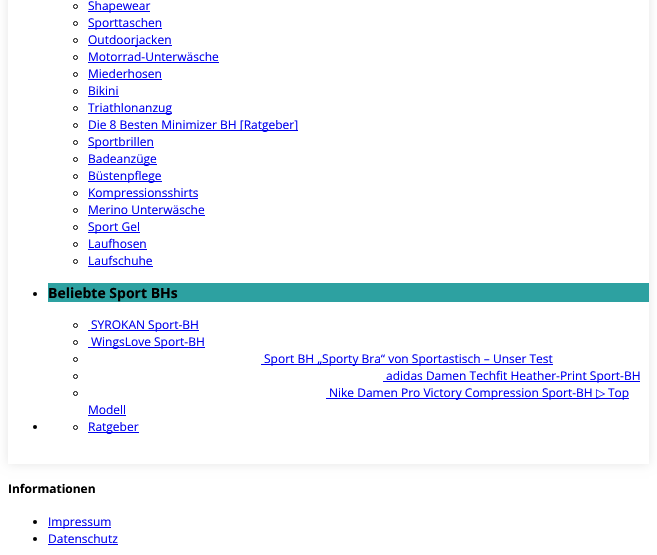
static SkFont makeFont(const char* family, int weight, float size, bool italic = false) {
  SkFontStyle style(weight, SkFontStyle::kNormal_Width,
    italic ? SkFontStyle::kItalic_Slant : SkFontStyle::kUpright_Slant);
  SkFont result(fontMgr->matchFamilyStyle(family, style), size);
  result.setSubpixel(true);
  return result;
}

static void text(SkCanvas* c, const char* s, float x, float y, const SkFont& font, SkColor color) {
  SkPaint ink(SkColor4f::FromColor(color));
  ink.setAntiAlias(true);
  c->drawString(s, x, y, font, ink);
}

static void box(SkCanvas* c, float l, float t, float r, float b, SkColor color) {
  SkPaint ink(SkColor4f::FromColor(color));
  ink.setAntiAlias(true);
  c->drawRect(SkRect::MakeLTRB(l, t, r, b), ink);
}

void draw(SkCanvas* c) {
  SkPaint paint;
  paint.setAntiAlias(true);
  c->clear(0xffffffff);
  c->save();
  c->clipPath(SkPathBuilder(SkPathFillType::kEvenOdd).moveTo(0, 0).lineTo(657, 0).lineTo(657, 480).lineTo(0, 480).close().moveTo(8, -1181).lineTo(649, -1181).lineTo(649, 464).lineTo(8, 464).close().detach(), true);
  paint.setColor(0x1a000000);
  paint.setMaskFilter(SkMaskFilter::MakeBlur(kNormal_SkBlurStyle, 5));
  c->drawRect(SkRect::MakeLTRB(8, -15, 649, 464), paint);
  paint.setMaskFilter(nullptr);
  c->restore();
  paint.setStyle(SkPaint::kStroke_Style);
  paint.setStrokeWidth(1);
  paint.setColor(0xff000000);
  c->drawCircle(75.5f, 6.5f, 2, paint);
  box(c, 88, 11, 150, 12, 0xff0000ee);
  SkFont face1 = makeFont("Open Sans", 400, 12);
  text(c, "Shapewear", 88, 10, face1, 0xff0000ee);
  c->drawCircle(75.5f, 23.5f, 2, paint);
  box(c, 88, 28, 162, 29, 0xff0000ee);
  text(c, "Sporttaschen", 88, 27, face1, 0xff0000ee);
  c->drawCircle(75.5f, 40.5f, 2, paint);
  box(c, 88, 45, 172, 46, 0xff0000ee);
  text(c, "Outdoorjacken", 88, 44, face1, 0xff0000ee);
  c->drawCircle(75.5f, 57.5f, 2, paint);
  text(c, "Motorrad-Unterwäsche", 88, 61, face1, 0xff0000ee);
  box(c, 88, 62, 219, 63, 0xff0000ee);
  c->drawCircle(75.5f, 74.5f, 2, paint);
  text(c, "Miederhosen", 88, 78, face1, 0xff0000ee);
  box(c, 88, 79, 162, 80, 0xff0000ee);
  c->drawCircle(75.5f, 91.5f, 2, paint);
  text(c, "Bikini", 88, 95, face1, 0xff0000ee);
  box(c, 88, 96, 119, 97, 0xff0000ee);
  c->drawCircle(75.5f, 108.5f, 2, paint);
  box(c, 88, 113, 172, 114, 0xff0000ee);
  text(c, "Triathlonanzug", 88, 112, face1, 0xff0000ee);
  c->drawCircle(75.5f, 125.5f, 2, paint);
  box(c, 88, 130, 298, 131, 0xff0000ee);
  text(c, "Die 8 Besten Minimizer BH [Ratgeber]", 88, 129, face1, 0xff0000ee);
  c->drawCircle(75.5f, 142.5f, 2, paint);
  box(c, 88, 147, 154, 148, 0xff0000ee);
  text(c, "Sportbrillen", 88, 146, face1, 0xff0000ee);
  c->drawCircle(75.5f, 159.5f, 2, paint);
  box(c, 88, 164, 157, 165, 0xff0000ee);
  text(c, "Badeanzüge", 88, 163, face1, 0xff0000ee);
  c->drawCircle(75.5f, 176.5f, 2, paint);
  box(c, 88, 181, 162, 182, 0xff0000ee);
  text(c, "Büstenpflege", 88, 180, face1, 0xff0000ee);
  c->drawCircle(75.5f, 193.5f, 2, paint);
  box(c, 88, 198, 198, 199, 0xff0000ee);
  text(c, "Kompressionsshirts", 88, 197, face1, 0xff0000ee);
  c->drawCircle(75.5f, 210.5f, 2, paint);
  text(c, "Merino Unterwäsche", 88, 214, face1, 0xff0000ee);
  box(c, 88, 215, 205, 216, 0xff0000ee);
  c->drawCircle(75.5f, 227.5f, 2, paint);
  box(c, 88, 232, 140, 233, 0xff0000ee);
  text(c, "Sport Gel", 88, 231, face1, 0xff0000ee);
  c->drawCircle(75.5f, 244.5f, 2, paint);
  text(c, "Laufhosen", 88, 248, face1, 0xff0000ee);
  box(c, 88, 249, 147, 250, 0xff0000ee);
  c->drawCircle(75.5f, 261.5f, 2, paint);
  text(c, "Laufschuhe", 88, 265, face1, 0xff0000ee);
  box(c, 88, 266, 153, 267, 0xff0000ee);
  paint.setStyle(SkPaint::kFill_Style);
  c->drawCircle(35, 294, 2, paint);
  box(c, 48, 283, 649, 302, 0xff2da1a1);
  SkFont face2 = makeFont("Open Sans", 700, 14);
  text(c, "Beliebte Sport BHs", 48, 298, face2, 0xff000000);
  paint.setStyle(SkPaint::kStroke_Style);
  c->drawCircle(75.5f, 325.5f, 2, paint);
  box(c, 88, 330, 199, 331, 0xff0000ee);
  text(c, "SYROKAN Sport-BH", 91, 329, face1, 0xff0000ee);
  c->drawCircle(75.5f, 342.5f, 2, paint);
  box(c, 88, 347, 205, 348, 0xff0000ee);
  text(c, "WingsLove Sport-BH", 91, 346, face1, 0xff0000ee);
  c->drawCircle(75.5f, 359.5f, 2, paint);
  box(c, 261, 364, 553, 365, 0xff0000ee);
  text(c, "Sport BH „Sporty Bra“ von Sportastisch – Unser Test", 264, 363, face1, 0xff0000ee);
  c->drawCircle(75.5f, 376.5f, 2, paint);
  box(c, 383, 381, 640, 382, 0xff0000ee);
  text(c, "adidas Damen Techfit Heather-Print Sport-BH", 386, 380, face1, 0xff0000ee);
  c->drawCircle(75.5f, 393.5f, 2, paint);
  box(c, 326, 398, 629, 399, 0xff0000ee);
  text(c, "Nike Damen Pro Victory Compression Sport-BH", 329, 397, face1, 0xff0000ee);
  SkFont face3 = makeFont("DejaVu Sans", 400, 12);
  text(c, "▷", 596, 397, face3, 0xff0000ee);
  text(c, "Top", 608, 397, face1, 0xff0000ee);
  text(c, "Modell", 88, 414, face1, 0xff0000ee);
  box(c, 88, 415, 126, 416, 0xff0000ee);
  paint.setStyle(SkPaint::kFill_Style);
  c->drawCircle(35, 427, 2, paint);
  paint.setStyle(SkPaint::kStroke_Style);
  c->drawCircle(75.5f, 427.5f, 2, paint);
  box(c, 88, 432, 139, 433, 0xff0000ee);
  text(c, "Ratgeber", 88, 431, face1, 0xff0000ee);
  SkFont face4 = makeFont("Open Sans", 700, 12);
  text(c, "Informationen", 8, 493, face4, 0xff000000);
  paint.setStyle(SkPaint::kFill_Style);
  c->drawCircle(35, 522, 2, paint);
  box(c, 48, 527, 111, 528, 0xff0000ee);
  text(c, "Impressum", 48, 526, face1, 0xff0000ee);
  c->drawCircle(35, 539, 2, paint);
  text(c, "Datenschutz", 48, 543, face1, 0xff0000ee);
  box(c, 48, 544, 118, 545, 0xff0000ee);
}
